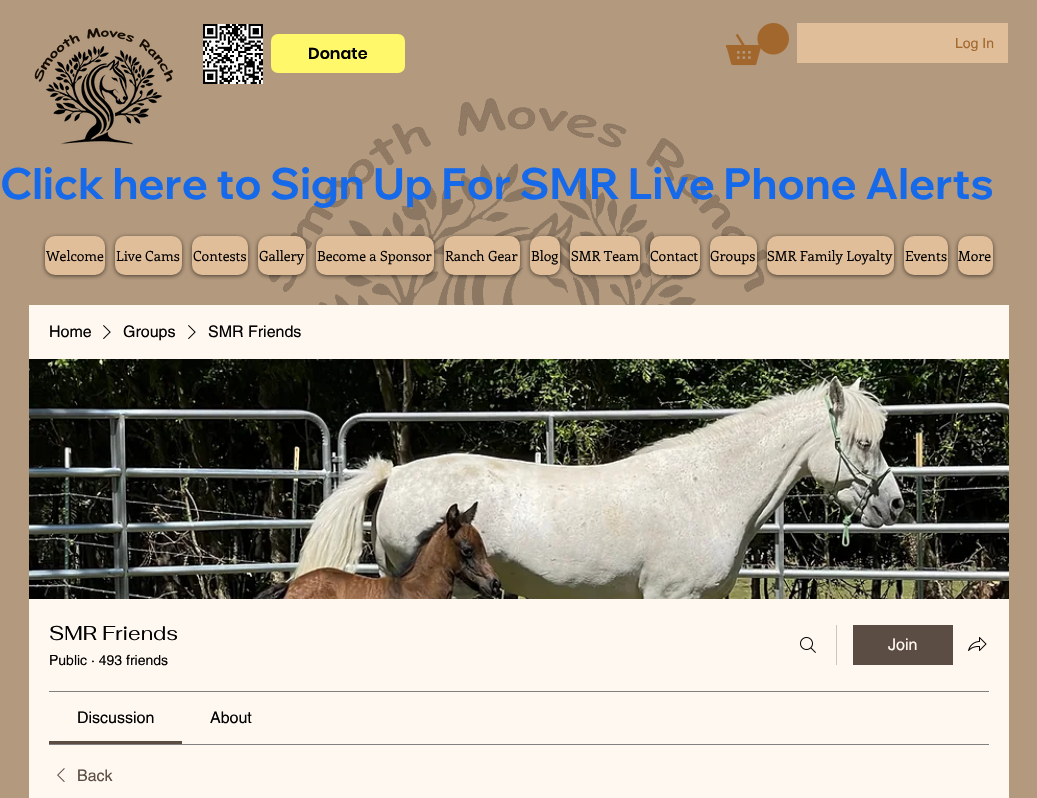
static SkFont makeFont(const char* family, int weight, float size, bool italic = false) {
  SkFontStyle style(weight, SkFontStyle::kNormal_Width,
    italic ? SkFontStyle::kItalic_Slant : SkFontStyle::kUpright_Slant);
  SkFont result(fontMgr->matchFamilyStyle(family, style), size);
  result.setSubpixel(true);
  return result;
}

static void text(SkCanvas* c, const char* s, float x, float y, const SkFont& font, SkColor color) {
  SkPaint ink(SkColor4f::FromColor(color));
  ink.setAntiAlias(true);
  c->drawString(s, x, y, font, ink);
}

static void box(SkCanvas* c, float l, float t, float r, float b, SkColor color) {
  SkPaint ink(SkColor4f::FromColor(color));
  ink.setAntiAlias(true);
  c->drawRect(SkRect::MakeLTRB(l, t, r, b), ink);
}

static void roundBox(SkCanvas* c, float l, float t, float r, float b, float radius, SkColor color) {
  SkPaint ink(SkColor4f::FromColor(color));
  ink.setAntiAlias(true);
  c->drawRoundRect(SkRect::MakeLTRB(l, t, r, b), radius, radius, ink);
}

static void picture(SkCanvas* c, const char* path, float l, float t, float r, float b) {
  auto image = SkImages::DeferredFromEncodedData(SkData::MakeFromFileName(path));
  c->drawImageRect(image, SkRect::MakeLTRB(l, t, r, b), SkSamplingOptions());
}

void draw(SkCanvas* c) {
  SkPaint paint;
  paint.setAntiAlias(true);
  c->clear(0xffb3997d);
  picture(c, "img_01.png", 34, 27, 173, 145);
  picture(c, "img_02.png", 203, 24, 263, 84);
  picture(c, "img_03.png", 726, 23, 789, 66);
  box(c, 797, 23, 1008, 63, 0xffe0be9a);
  SkFont face1 = makeFont("helvetica", 400, 14);
  text(c, "Log In", 955, 48, face1, 0xffa2672d);
  roundBox(c, 271, 34, 405, 73, 7, 0xfffff86b);
  SkFont face2 = makeFont("Poppins", 600, 16);
  text(c, "Donate", 308, 59, face2, 0xff000000);
  picture(c, "img_09.png", 268, 98, 767, 305);
  SkFont face3 = makeFont("Wix Madefor Display", 700, 43);
  text(c, "Click here to Sign Up For SMR Live Phone Alerts", 0, 199, face3, 0xff166aea);
  paint.setColor(0x99000000);
  paint.setMaskFilter(SkMaskFilter::MakeBlur(kNormal_SkBlurStyle, 2));
  c->drawRoundRect(SkRect::MakeLTRB(45, 237, 105, 276), 10, 10, paint);
  paint.setMaskFilter(nullptr);
  roundBox(c, 45, 236, 105, 275, 10, 0xffe0be9a);
  SkFont face4 = makeFont("Enriqueta", 400, 14);
  text(c, "Welcome", 46, 261, face4, 0xff000000);
  paint.setMaskFilter(SkMaskFilter::MakeBlur(kNormal_SkBlurStyle, 2));
  c->drawRoundRect(SkRect::MakeLTRB(115, 237, 182, 276), 10, 10, paint);
  paint.setMaskFilter(nullptr);
  roundBox(c, 115, 236, 182, 275, 10, 0xffe0be9a);
  text(c, "Live Cams", 116, 261, face4, 0xff000000);
  paint.setMaskFilter(SkMaskFilter::MakeBlur(kNormal_SkBlurStyle, 2));
  c->drawRoundRect(SkRect::MakeLTRB(192, 237, 248, 276), 10, 10, paint);
  paint.setMaskFilter(nullptr);
  roundBox(c, 192, 236, 248, 275, 10, 0xffe0be9a);
  text(c, "Contests", 193, 261, face4, 0xff000000);
  paint.setMaskFilter(SkMaskFilter::MakeBlur(kNormal_SkBlurStyle, 2));
  c->drawRoundRect(SkRect::MakeLTRB(258, 237, 306, 276), 10, 10, paint);
  paint.setMaskFilter(nullptr);
  roundBox(c, 258, 236, 306, 275, 10, 0xffe0be9a);
  text(c, "Gallery", 259, 261, face4, 0xff000000);
  paint.setMaskFilter(SkMaskFilter::MakeBlur(kNormal_SkBlurStyle, 2));
  c->drawRoundRect(SkRect::MakeLTRB(316, 237, 434, 276), 10, 10, paint);
  paint.setMaskFilter(nullptr);
  roundBox(c, 316, 236, 434, 275, 10, 0xffe0be9a);
  text(c, "Become a Sponsor", 317, 261, face4, 0xff000000);
  paint.setMaskFilter(SkMaskFilter::MakeBlur(kNormal_SkBlurStyle, 2));
  c->drawRoundRect(SkRect::MakeLTRB(444, 237, 520, 276), 10, 10, paint);
  paint.setMaskFilter(nullptr);
  roundBox(c, 444, 236, 520, 275, 10, 0xffe0be9a);
  text(c, "Ranch Gear", 445, 261, face4, 0xff000000);
  paint.setMaskFilter(SkMaskFilter::MakeBlur(kNormal_SkBlurStyle, 2));
  c->drawRoundRect(SkRect::MakeLTRB(530, 237, 560, 276), 10, 10, paint);
  paint.setMaskFilter(nullptr);
  roundBox(c, 530, 236, 560, 275, 10, 0xffe0be9a);
  text(c, "Blog", 531, 261, face4, 0xff000000);
  paint.setMaskFilter(SkMaskFilter::MakeBlur(kNormal_SkBlurStyle, 2));
  c->drawRoundRect(SkRect::MakeLTRB(570, 237, 640, 276), 10, 10, paint);
  paint.setMaskFilter(nullptr);
  roundBox(c, 570, 236, 640, 275, 10, 0xffe0be9a);
  text(c, "SMR Team", 571, 261, face4, 0xff000000);
  paint.setMaskFilter(SkMaskFilter::MakeBlur(kNormal_SkBlurStyle, 2));
  c->drawRoundRect(SkRect::MakeLTRB(650, 237, 700, 276), 10, 10, paint);
  paint.setMaskFilter(nullptr);
  roundBox(c, 650, 236, 700, 275, 10, 0xffe0be9a);
  text(c, "Contact", 650, 261, face4, 0xff000000);
  paint.setMaskFilter(SkMaskFilter::MakeBlur(kNormal_SkBlurStyle, 2));
  c->drawRoundRect(SkRect::MakeLTRB(710, 237, 757, 276), 10, 10, paint);
  paint.setMaskFilter(nullptr);
  roundBox(c, 710, 236, 757, 275, 10, 0xffe0be9a);
  text(c, "Groups", 710, 261, face4, 0xff000000);
  paint.setMaskFilter(SkMaskFilter::MakeBlur(kNormal_SkBlurStyle, 2));
  c->drawRoundRect(SkRect::MakeLTRB(767, 237, 894, 276), 10, 10, paint);
  paint.setMaskFilter(nullptr);
  roundBox(c, 767, 236, 894, 275, 10, 0xffe0be9a);
  text(c, "SMR Family Loyalty", 767, 261, face4, 0xff000000);
  paint.setMaskFilter(SkMaskFilter::MakeBlur(kNormal_SkBlurStyle, 2));
  c->drawRoundRect(SkRect::MakeLTRB(904, 237, 948, 276), 10, 10, paint);
  paint.setMaskFilter(nullptr);
  roundBox(c, 904, 236, 948, 275, 10, 0xffe0be9a);
  text(c, "Events", 905, 261, face4, 0xff000000);
  paint.setMaskFilter(SkMaskFilter::MakeBlur(kNormal_SkBlurStyle, 2));
  c->drawRoundRect(SkRect::MakeLTRB(958, 237, 993, 276), 10, 10, paint);
  paint.setMaskFilter(nullptr);
  roundBox(c, 958, 236, 993, 275, 10, 0xffe0be9a);
  text(c, "More", 958, 261, face4, 0xff000000);
  box(c, 29, 305, 1009, 798, 0xfffff8f1);
  SkFont face5 = makeFont("helvetica", 400, 16);
  text(c, "Home", 49, 337, face5, 0xff000000);
  picture(c, "img_04.png", 103, 325, 111, 339);
  text(c, "Groups", 123, 337, face5, 0xff000000);
  picture(c, "img_04.png", 188, 325, 196, 339);
  text(c, "SMR Friends", 208, 337, face5, 0xff000000);
  picture(c, "img_05.png", 29, 359, 1009, 599);
  SkFont face6 = makeFont("Fahkwang", 400, 20);
  text(c, "SMR Friends", 49, 640, face6, 0xff000000);
  text(c, "Public · 493 friends", 49, 665, face1, 0xff000000);
  picture(c, "img_06.png", 800, 637, 816, 653);
  box(c, 836, 625, 837, 665, 0xffccc6c1);
  box(c, 853, 625, 953, 665, 0xff5b4d43);
  text(c, "Join", 888, 650, face5, 0xfffff8f1);
  picture(c, "img_07.png", 968, 637, 987, 651);
  box(c, 49, 691, 989, 692, 0xff808080);
  box(c, 49, 744, 989, 745, 0xff808080);
  box(c, 49, 741, 182, 744, 0xff5b4d43);
  text(c, "Discussion", 77, 723, face5, 0xff000000);
  text(c, "About", 210, 723, face5, 0xff000000);
  picture(c, "img_08.png", 57, 768, 65, 782);
  text(c, "Back", 77, 781, face5, 0xff5b4d43);
}
